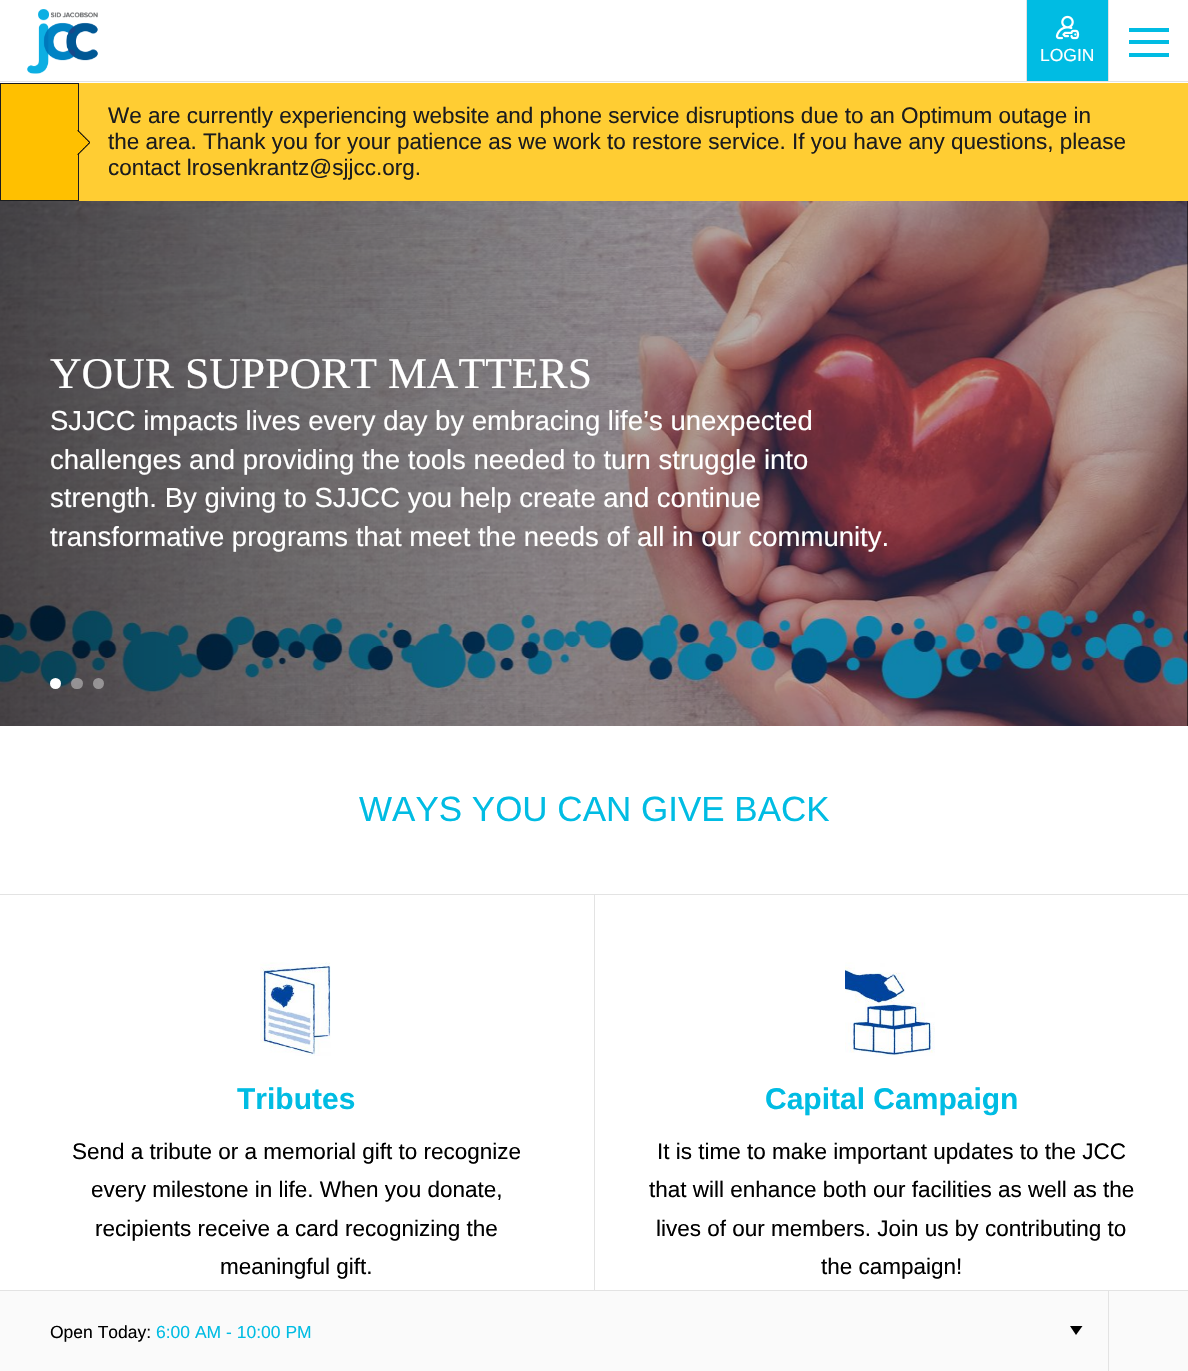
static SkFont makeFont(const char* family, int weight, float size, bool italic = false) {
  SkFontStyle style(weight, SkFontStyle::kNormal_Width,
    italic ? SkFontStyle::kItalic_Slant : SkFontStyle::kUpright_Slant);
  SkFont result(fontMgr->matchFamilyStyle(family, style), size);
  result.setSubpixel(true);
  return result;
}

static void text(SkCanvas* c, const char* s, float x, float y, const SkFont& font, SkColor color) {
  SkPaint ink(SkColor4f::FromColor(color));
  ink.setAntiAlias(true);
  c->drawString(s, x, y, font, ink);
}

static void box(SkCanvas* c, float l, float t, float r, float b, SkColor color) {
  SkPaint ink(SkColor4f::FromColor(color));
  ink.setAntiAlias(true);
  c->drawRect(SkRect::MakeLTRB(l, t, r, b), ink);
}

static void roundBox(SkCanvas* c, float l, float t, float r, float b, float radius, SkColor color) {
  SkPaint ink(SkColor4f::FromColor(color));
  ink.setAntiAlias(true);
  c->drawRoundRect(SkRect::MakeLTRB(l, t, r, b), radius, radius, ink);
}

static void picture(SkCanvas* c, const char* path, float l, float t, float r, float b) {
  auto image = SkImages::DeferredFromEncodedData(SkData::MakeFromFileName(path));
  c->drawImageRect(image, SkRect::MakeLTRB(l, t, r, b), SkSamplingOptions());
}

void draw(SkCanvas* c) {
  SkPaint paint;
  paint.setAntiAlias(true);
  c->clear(0xffffffff);
  box(c, 0, 81, 1188, 82, 0xffe3e3e3);
  picture(c, "img_01.png", 27, 9, 98, 74);
  box(c, 1027, 0, 1108, 81, 0xff00bce3);
  box(c, 1026, 0, 1027, 81, 0xffe3e3e3);
  picture(c, "img_02.png", 1055, 15, 1080, 40);
  SkFont face1 = makeFont("Liberation Sans", 400, 17.5f);
  text(c, "LOGIN", 1040, 61, face1, 0xffffffff);
  box(c, 1108, 0, 1109, 81, 0xffe3e3e3);
  box(c, 1129, 28, 1169, 32, 0xff00bce3);
  box(c, 1129, 40, 1169, 44, 0xff00bce3);
  box(c, 1129, 53, 1169, 57, 0xff00bce3);
  box(c, 79, 83, 1188, 201, 0xffffcd33);
  paint.setColor(0xffffc000);
  c->drawRect(SkRect::MakeLTRB(0.5f, 83.5f, 78.5f, 200.5f), paint);
  paint.setStyle(SkPaint::kStroke_Style);
  paint.setStrokeWidth(1);
  paint.setColor(0xff1b1c1e);
  c->drawRect(SkRect::MakeLTRB(0.5f, 83.5f, 78.5f, 200.5f), paint);
  picture(c, "img_03.png", 77, 130, 90, 155);
  SkFont face2 = makeFont("Liberation Sans", 400, 22.5f);
  text(c, "We are currently experiencing website and phone service disruptions due to an Optimum outage in", 108, 123, face2, 0xff1b1c1e);
  text(c, "the area. Thank you for your patience as we work to restore service. If you have any questions, please", 108, 149, face2, 0xff1b1c1e);
  text(c, "contact lrosenkrantz@sjjcc.org.", 108, 175, face2, 0xff1b1c1e);
  box(c, 1187, 201, 1188, 726, 0xff000000);
  picture(c, "img_04.png", 0, 201, 1188, 726);
  paint.setStyle(SkPaint::kFill_Style);
  {
    const SkColor colors[] = {0x85000000, 0x00000000, 0x00000000};
    const float stops[] = {0, 0.66f, 1};
    const SkPoint ends[] = {{0, 464}, {1188, 464}};
    paint.setShader(SkGradientShader::MakeLinear(ends, colors, stops, 3, SkTileMode::kClamp));
    paint.setAlpha(255);
  }
  c->drawRect(SkRect::MakeLTRB(0, 201, 752, 726), paint);
  SkFont face3 = makeFont("Liberation Serif", 400, 43.75f);
  text(c, "YOUR SUPPORT MATTERS", 50, 388, face3, 0xffffffff);
  SkFont face4 = makeFont("Liberation Sans", 400, 27.5f);
  text(c, "SJJCC impacts lives every day by embracing life’s unexpected", 50, 430, face4, 0xffffffff);
  text(c, "challenges and providing the tools needed to turn struggle into", 50, 469, face4, 0xffffffff);
  text(c, "strength. By giving to SJJCC you help create and continue", 50, 507, face4, 0xffffffff);
  text(c, "transformative programs that meet the needs of all in our community.", 50, 546, face4, 0xffffffff);
  paint.setShader(nullptr);
  paint.setColor(0xffffffff);
  c->drawCircle(55.5f, 683.5f, 5.5f, paint);
  roundBox(c, 71, 678, 83, 689, 5.5f, 0x66ffffff);
  paint.setColor(0x66ffffff);
  c->drawCircle(98.5f, 683.5f, 5.5f, paint);
  box(c, 0, 894, 1188, 895, 0xffe3e3e3);
  SkFont face5 = makeFont("Liberation Sans", 400, 35);
  text(c, "WAYS YOU CAN GIVE BACK", 359, 821, face5, 0xff00bce3);
  box(c, 594, 895, 595, 1290, 0xffe3e3e3);
  picture(c, "img_05.png", 260, 962, 331, 1056);
  SkFont face6 = makeFont("Liberation Sans", 700, 30);
  text(c, "Tributes", 237, 1109, face6, 0xff00bce3);
  text(c, "Send a tribute or a memorial gift to recognize", 72, 1159, face2, 0xff000000);
  text(c, "every milestone in life. When you donate,", 91, 1197, face2, 0xff000000);
  text(c, "recipients receive a card recognizing the", 95, 1236, face2, 0xff000000);
  text(c, "meaningful gift.", 220, 1274, face2, 0xff000000);
  picture(c, "img_06.png", 845, 962, 935, 1057);
  text(c, "Capital Campaign", 765, 1109, face6, 0xff00bce3);
  text(c, "It is time to make important updates to the JCC", 657, 1159, face2, 0xff000000);
  text(c, "that will enhance both our facilities as well as the", 649, 1197, face2, 0xff000000);
  text(c, "lives of our members. Join us by contributing to", 656, 1236, face2, 0xff000000);
  text(c, "the campaign!", 821, 1274, face2, 0xff000000);
  box(c, 0, 1291, 1188, 1371, 0xfffafafa);
  box(c, 0, 1290, 1188, 1291, 0xffe3e3e3);
  box(c, 1108, 1291, 1109, 1371, 0xffe3e3e3);
  text(c, "Open Today:", 50, 1338, face1, 0xff000000);
  text(c, "6:00 AM - 10:00 PM", 156, 1338, face1, 0xff00bce3);
  paint.setColor(0xff000000);
  c->drawPath(SkPathBuilder().moveTo(1070, 1326).lineTo(1082.5f, 1326).lineTo(1076, 1335).close().detach(), paint);
}
